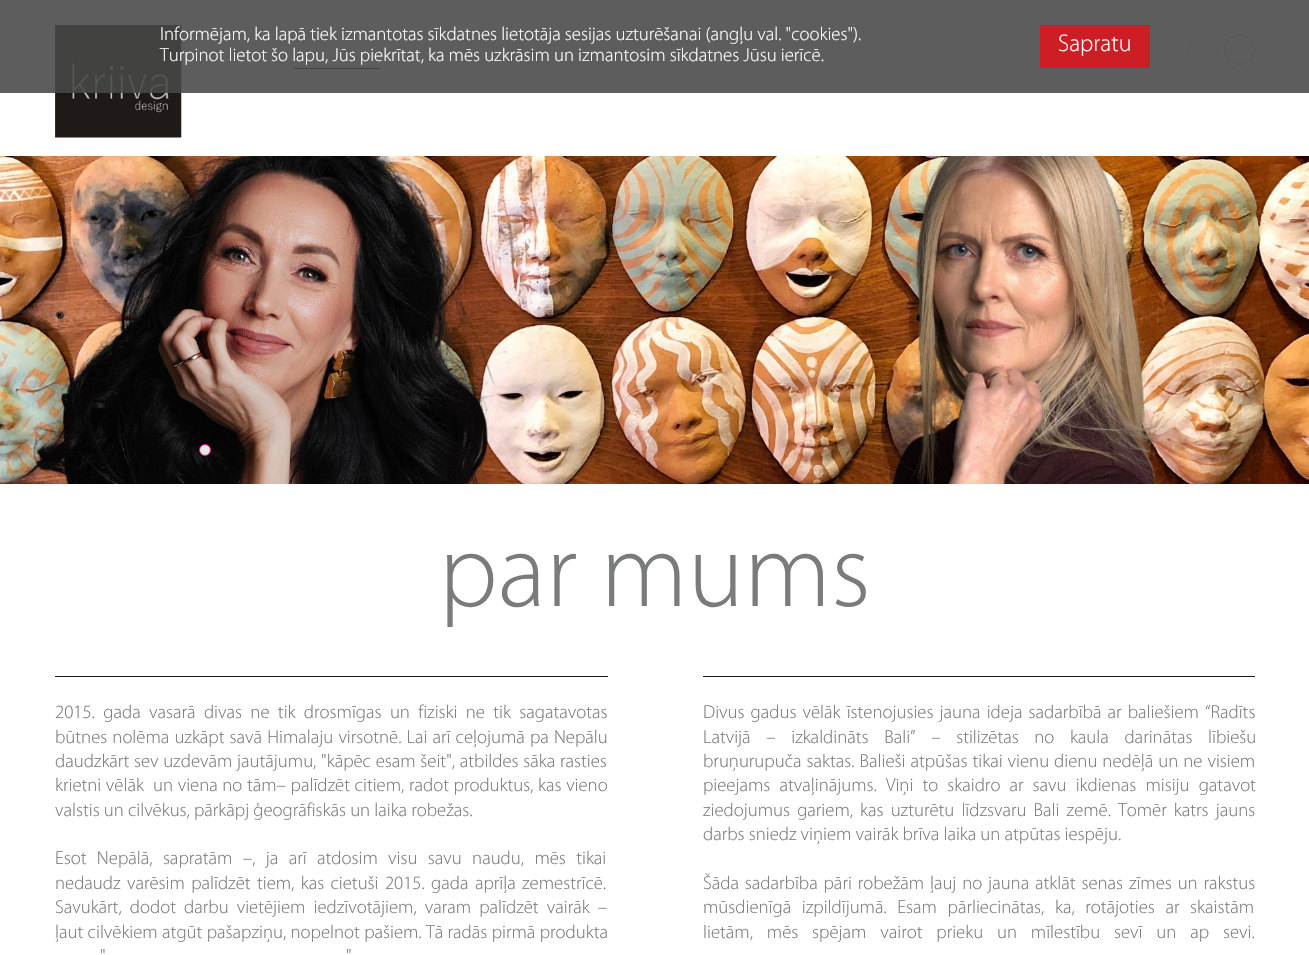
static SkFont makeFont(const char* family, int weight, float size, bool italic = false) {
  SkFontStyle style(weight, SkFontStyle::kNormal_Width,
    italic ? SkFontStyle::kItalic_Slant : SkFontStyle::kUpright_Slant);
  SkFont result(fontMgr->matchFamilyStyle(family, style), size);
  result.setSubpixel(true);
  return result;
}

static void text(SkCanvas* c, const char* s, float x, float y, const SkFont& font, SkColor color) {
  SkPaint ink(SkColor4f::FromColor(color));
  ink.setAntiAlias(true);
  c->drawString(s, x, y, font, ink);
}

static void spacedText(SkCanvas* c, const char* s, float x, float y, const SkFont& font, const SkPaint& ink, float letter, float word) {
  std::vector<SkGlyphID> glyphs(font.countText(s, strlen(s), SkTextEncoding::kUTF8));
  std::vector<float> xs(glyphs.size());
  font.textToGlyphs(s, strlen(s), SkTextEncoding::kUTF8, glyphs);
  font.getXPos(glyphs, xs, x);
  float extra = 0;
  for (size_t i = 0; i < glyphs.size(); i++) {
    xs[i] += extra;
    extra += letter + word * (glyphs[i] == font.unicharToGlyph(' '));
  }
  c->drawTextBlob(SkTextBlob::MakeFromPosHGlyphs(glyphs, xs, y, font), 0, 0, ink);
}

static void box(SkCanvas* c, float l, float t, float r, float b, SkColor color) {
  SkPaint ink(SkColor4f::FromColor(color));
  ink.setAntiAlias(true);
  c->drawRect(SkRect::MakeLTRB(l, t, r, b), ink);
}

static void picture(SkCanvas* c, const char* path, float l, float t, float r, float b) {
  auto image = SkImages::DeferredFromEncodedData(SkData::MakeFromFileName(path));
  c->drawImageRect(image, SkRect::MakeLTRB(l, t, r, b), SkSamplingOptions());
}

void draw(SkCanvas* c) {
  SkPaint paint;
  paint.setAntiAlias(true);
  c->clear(0xffffffff);
  picture(c, "img_01.png", 55, 25, 182, 138);
  paint.setStyle(SkPaint::kStroke_Style);
  paint.setStrokeWidth(1);
  paint.setColor(0xffe7e7e7);
  c->drawCircle(1203.5f, 49.5f, 15, paint);
  paint.setColor(0xffbdbdbd);
  c->drawCircle(1239.5f, 49.5f, 15, paint);
  box(c, 294, 68, 380, 69, 0xff1f1a17);
  box(c, 0, 0, 1309, 93, 0xe0474747);
  SkFont face1 = makeFont("Myriad", 300, 18.75f);
  text(c, "Informējam, ka lapā tiek izmantotas sīkdatnes lietotāja sesijas uzturēšanai (angļu val. \"cookies\").", 160, 40, face1, 0xffffffff);
  text(c, "Turpinot lietot šo lapu, Jūs piekrītat, ka mēs uzkrāsim un izmantosim sīkdatnes Jūsu ierīcē.", 160, 61, face1, 0xffffffff);
  box(c, 1040, 25, 1150, 68, 0xffce1e25);
  SkFont face2 = makeFont("Myriad", 300, 24);
  text(c, "Sapratu", 1058, 51, face2, 0xffffffff);
  picture(c, "img_02.png", 0, 156, 1309, 484);
  paint.setStyle(SkPaint::kFill_Style);
  paint.setColor(0xffe7e7e7);
  c->drawCircle(205, 450, 5.5f, paint);
  paint.setStyle(SkPaint::kStroke_Style);
  paint.setColor(0xffea0480);
  c->drawCircle(205, 450, 5.5f, paint);
  SkFont face3 = makeFont("Myriad", 300, 106.25f);
  text(c, "par mums", 439, 606, face3, 0xff7a7b7d);
  box(c, 55, 676, 608, 677, 0xff1f1a17);
  paint.setStyle(SkPaint::kFill_Style);
  paint.setColor(0xff7a7b7d);
  spacedText(c, "2015. gada vasarā divas ne tik drosmīgas un fiziski ne tik sagatavotas", 55, 718, face1, paint, 0, 4.25f);
  spacedText(c, "būtnes nolēma uzkāpt savā Himalaju virsotnē. Lai arī ceļojumā pa Nepālu", 55, 743, face1, paint, 0, 1);
  spacedText(c, "daudzkārt sev uzdevām jautājumu, \"kāpēc esam šeit\", atbildes sāka rasties", 55, 767, face1, paint, 0, 0.6f);
  spacedText(c, "krietni vēlāk  un viena no tām– palīdzēt citiem, radot produktus, kas vieno", 55, 791, face1, paint, 0, 0.5f);
  text(c, "valstis un cilvēkus, pārkāpj ģeogrāfiskās un laika robežas.", 55, 816, face1, 0xff7a7b7d);
  spacedText(c, "Esot Nepālā, sapratām –, ja arī atdosim visu savu naudu, mēs tikai", 55, 864, face1, paint, 0, 6.25f);
  spacedText(c, "nedaudz varēsim palīdzēt tiem, kas cietuši 2015. gada aprīļa zemestrīcē.", 55, 889, face1, paint, 0, 2.25f);
  spacedText(c, "Savukārt, dodot darbu vietējiem iedzīvotājiem, varam palīdzēt vairāk –", 55, 913, face1, paint, 0, 4);
  spacedText(c, "ļaut cilvēkiem atgūt pašapziņu, nopelnot pašiem. Tā radās pirmā produkta", 55, 938, face1, paint, 0, 0.25f);
  spacedText(c, "\"", 100, 962, face1, paint, 0, 5);
  spacedText(c, "\"", 346, 962, face1, paint, 0, 5);
  box(c, 703, 676, 1255, 677, 0xff1f1a17);
  spacedText(c, "Divus gadus vēlāk īstenojusies jauna ideja sadarbībā ar baliešiem “Radīts", 703, 718, face1, paint, 0, 2);
  spacedText(c, "Latvijā – izkaldināts Bali” – stilizētas no kaula darinātas lībiešu", 703, 743, face1, paint, 0, 11.5f);
  spacedText(c, "bruņurupuča saktas. Balieši atpūšas tikai vienu dienu nedēļā un ne visiem", 703, 767, face1, paint, 0, 0.9f);
  spacedText(c, "pieejams atvaļinājums. Viņi to skaidro ar savu ikdienas misiju gatavot", 703, 791, face1, paint, 0, 5);
  spacedText(c, "ziedojumus gariem, kas uzturētu līdzsvaru Bali zemē. Tomēr katrs jauns", 703, 816, face1, paint, 0, 3);
  text(c, "darbs sniedz viņiem vairāk brīva laika un atpūtas iespēju.", 703, 840, face1, 0xff7a7b7d);
  spacedText(c, "Šāda sadarbība pāri robežām ļauj no jauna atklāt senas zīmes un rakstus", 703, 889, face1, paint, 0, 1.75f);
  spacedText(c, "mūsdienīgā izpildījumā. Esam pārliecinātas, ka, rotājoties ar skaistām", 703, 913, face1, paint, 0, 6.5f);
  spacedText(c, "lietām, mēs spējam vairot prieku un mīlestību sevī un ap sevi.", 703, 938, face1, paint, 0, 9.75f);
}
